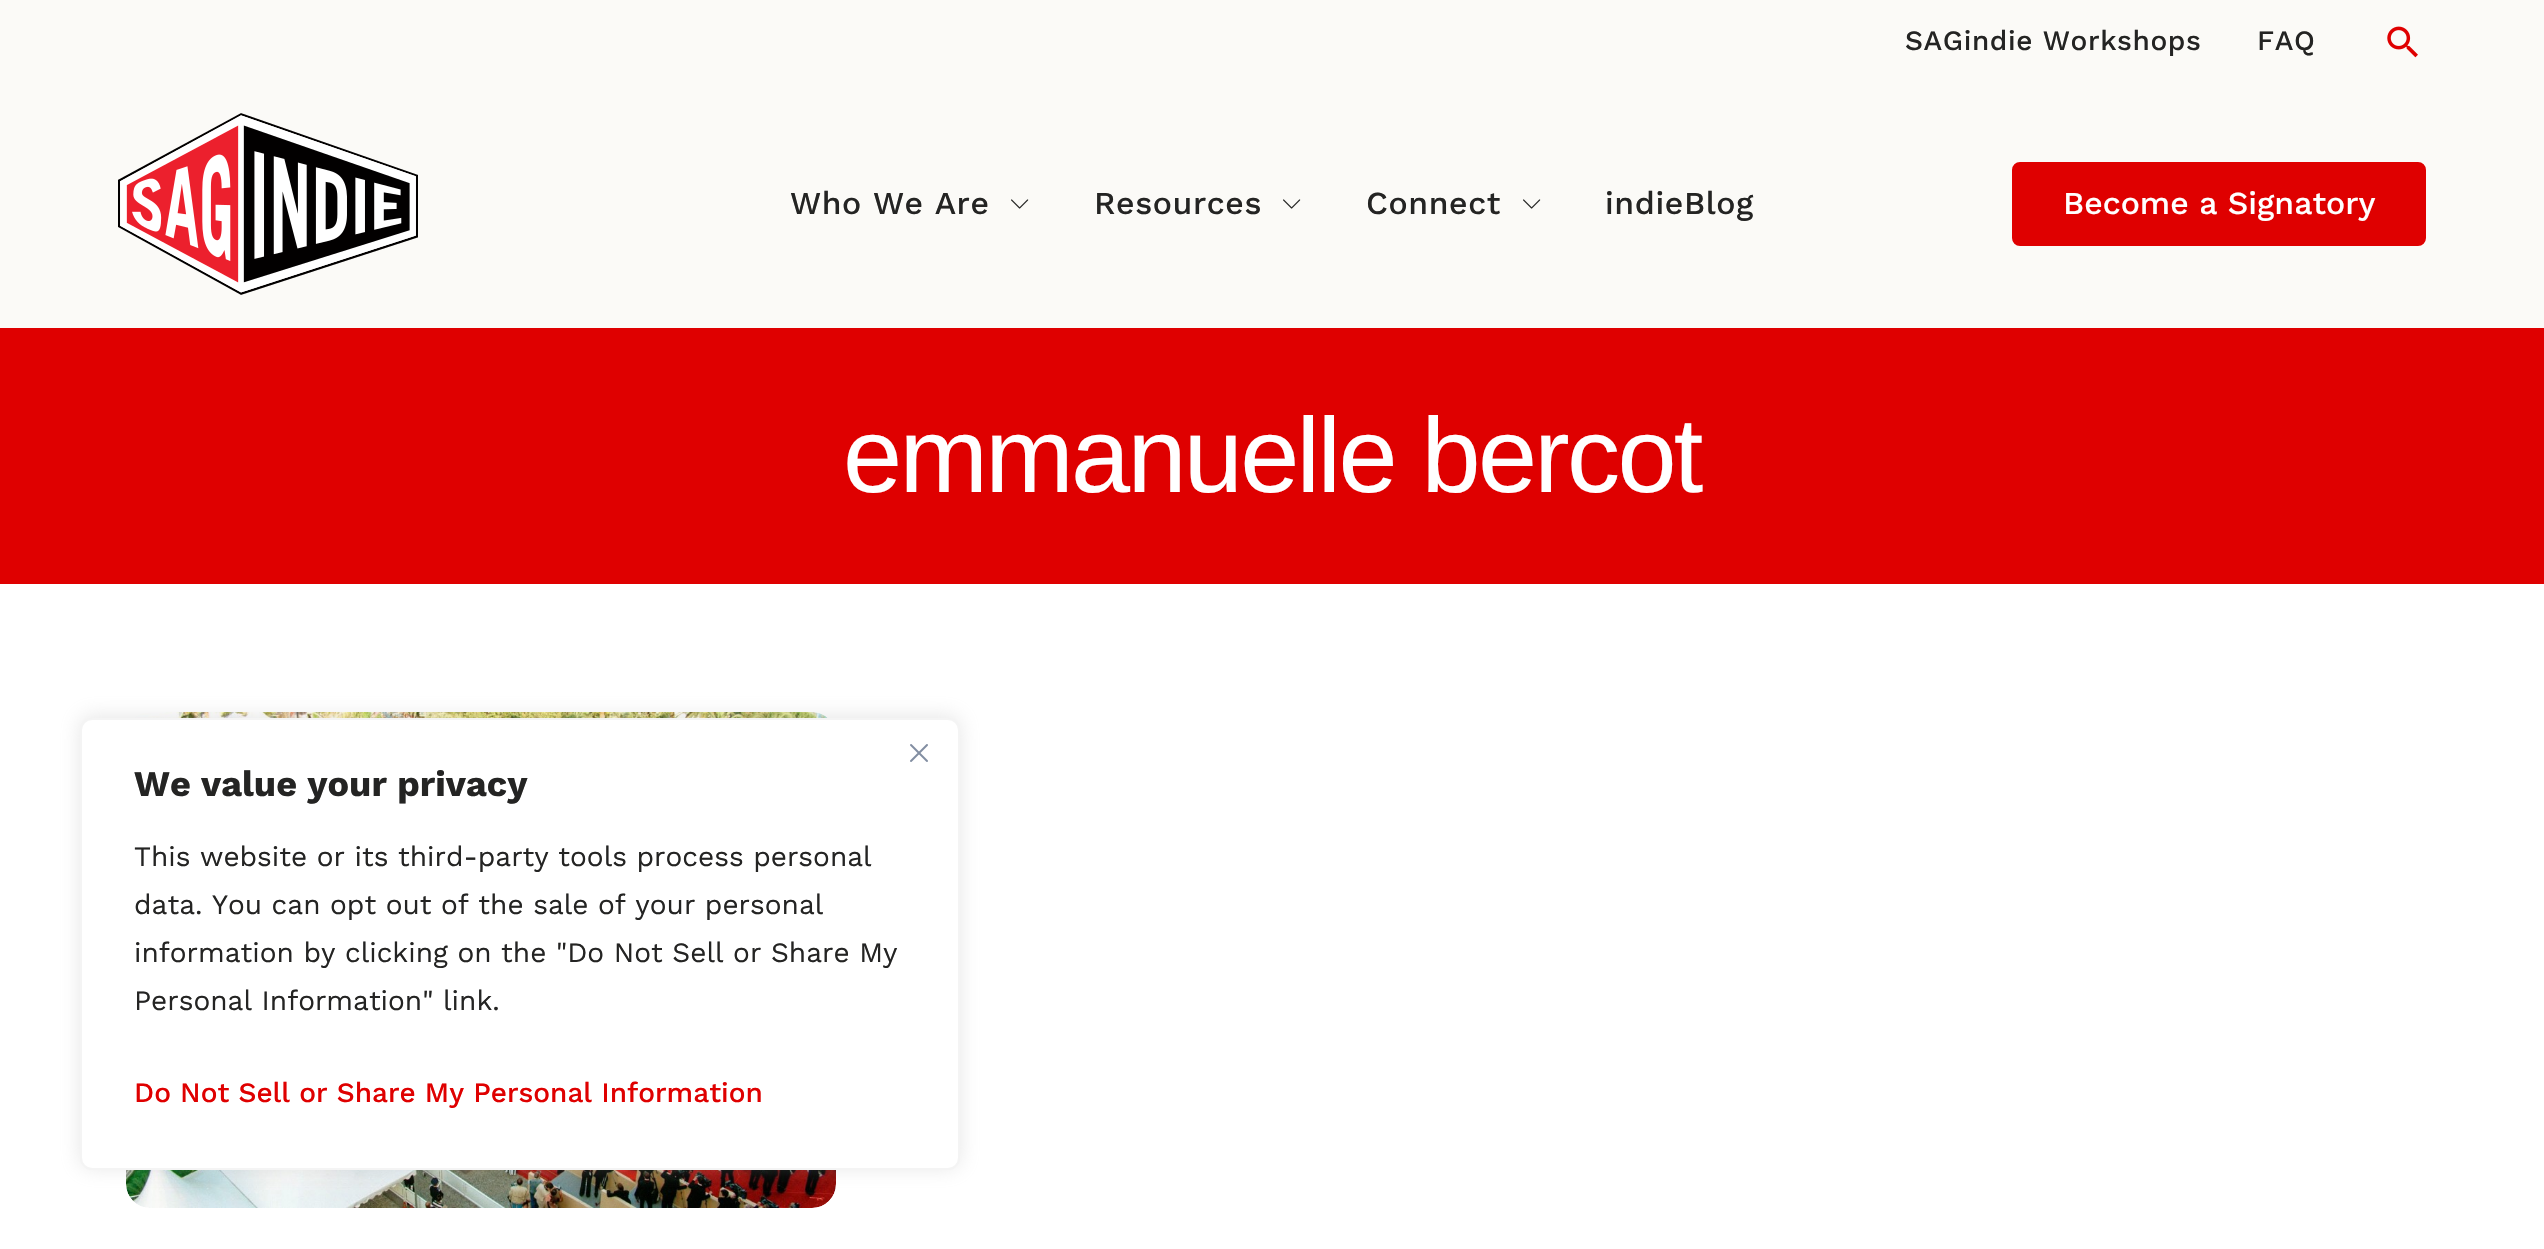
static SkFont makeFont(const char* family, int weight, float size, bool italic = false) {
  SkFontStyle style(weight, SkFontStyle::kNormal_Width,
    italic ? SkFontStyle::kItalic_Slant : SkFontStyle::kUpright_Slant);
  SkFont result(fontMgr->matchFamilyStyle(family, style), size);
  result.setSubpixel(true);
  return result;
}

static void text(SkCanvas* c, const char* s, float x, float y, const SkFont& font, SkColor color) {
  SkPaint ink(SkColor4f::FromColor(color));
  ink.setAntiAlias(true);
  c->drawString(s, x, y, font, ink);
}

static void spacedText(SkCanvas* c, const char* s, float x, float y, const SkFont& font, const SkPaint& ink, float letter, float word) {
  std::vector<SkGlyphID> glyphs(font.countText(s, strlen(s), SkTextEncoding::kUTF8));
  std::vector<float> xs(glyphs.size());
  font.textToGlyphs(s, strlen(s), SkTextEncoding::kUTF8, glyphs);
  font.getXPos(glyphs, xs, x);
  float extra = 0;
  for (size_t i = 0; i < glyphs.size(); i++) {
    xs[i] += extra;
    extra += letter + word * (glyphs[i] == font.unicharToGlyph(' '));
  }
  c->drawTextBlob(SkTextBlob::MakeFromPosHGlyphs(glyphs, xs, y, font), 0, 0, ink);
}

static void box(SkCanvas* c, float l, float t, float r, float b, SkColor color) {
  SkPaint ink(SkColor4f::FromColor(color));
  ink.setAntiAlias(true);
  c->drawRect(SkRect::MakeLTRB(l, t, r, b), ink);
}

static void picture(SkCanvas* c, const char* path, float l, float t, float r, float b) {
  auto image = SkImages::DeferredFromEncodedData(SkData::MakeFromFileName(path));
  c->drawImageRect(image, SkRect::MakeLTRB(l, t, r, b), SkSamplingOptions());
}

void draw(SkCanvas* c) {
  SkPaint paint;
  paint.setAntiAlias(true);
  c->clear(0xffffffff);
  box(c, 0, 0, 2544, 328, 0xfffbfaf7);
  SkFont face1 = makeFont("Work Sans", 500, 28);
  paint.setColor(0xff242423);
  spacedText(c, "SAGindie Workshops", 1905, 50, face1, paint, 0.6f, 0);
  spacedText(c, "FAQ", 2257, 50, face1, paint, 0.6f, 0);
  picture(c, "img_01.png", 2387, 26, 2418, 58);
  picture(c, "img_02.png", 118, 113, 418, 295);
  SkFont face2 = makeFont("Work Sans", 500, 32);
  spacedText(c, "Who We Are", 790, 214, face2, paint, 0.6f, 0);
  picture(c, "img_03.png", 1011, 199, 1029, 209);
  spacedText(c, "Resources", 1094, 214, face2, paint, 0.6f, 0);
  picture(c, "img_03.png", 1283, 199, 1301, 209);
  spacedText(c, "Connect", 1366, 214, face2, paint, 0.6f, 0);
  picture(c, "img_03.png", 1523, 199, 1541, 209);
  spacedText(c, "indieBlog", 1605, 214, face2, paint, 0.6f, 0);
  paint.setColor(0xffdf0000);
  c->drawRoundRect(SkRect::MakeLTRB(2013, 163, 2425, 245), 7, 7, paint);
  paint.setStyle(SkPaint::kStroke_Style);
  paint.setStrokeWidth(2);
  c->drawRoundRect(SkRect::MakeLTRB(2013, 163, 2425, 245), 7, 7, paint);
  text(c, "Become a Signatory", 2063, 214, face2, 0xffffffff);
  box(c, 0, 328, 2544, 584, 0xffdf0000);
  SkFont face3 = makeFont("Liberation Sans", 400, 106.25f);
  paint.setStyle(SkPaint::kFill_Style);
  paint.setColor(0xffffffff);
  spacedText(c, "emmanuelle bercot", 843, 492, face3, paint, -2.7f, 0);
  picture(c, "img_04.png", 126, 712, 836, 1208);
  paint.setColor(0x4dacabab);
  paint.setMaskFilter(SkMaskFilter::MakeBlur(kNormal_SkBlurStyle, 10));
  c->drawRoundRect(SkRect::MakeLTRB(80, 716, 960, 1168), 12, 12, paint);
  paint.setMaskFilter(nullptr);
  paint.setColor(0xffffffff);
  c->drawRoundRect(SkRect::MakeLTRB(81, 719, 959, 1169), 11, 11, paint);
  paint.setStyle(SkPaint::kStroke_Style);
  paint.setColor(0xfff4f4f4);
  c->drawRoundRect(SkRect::MakeLTRB(81, 719, 959, 1169), 11, 11, paint);
  picture(c, "img_05.png", 910, 744, 928, 762);
  SkFont face4 = makeFont("Work Sans", 700, 36);
  text(c, "We value your privacy", 134, 796, face4, 0xff242423);
  SkFont face5 = makeFont("Work Sans", 400, 28);
  text(c, "This website or its third-party tools process personal", 134, 866, face5, 0xff242423);
  text(c, "data. You can opt out of the sale of your personal", 134, 914, face5, 0xff242423);
  text(c, "information by clicking on the \"Do Not Sell or Share My", 134, 962, face5, 0xff242423);
  text(c, "Personal Information\" link.", 134, 1010, face5, 0xff242423);
  text(c, "Do Not Sell or Share My Personal Information", 134, 1102, face1, 0xffdf0000);
}
